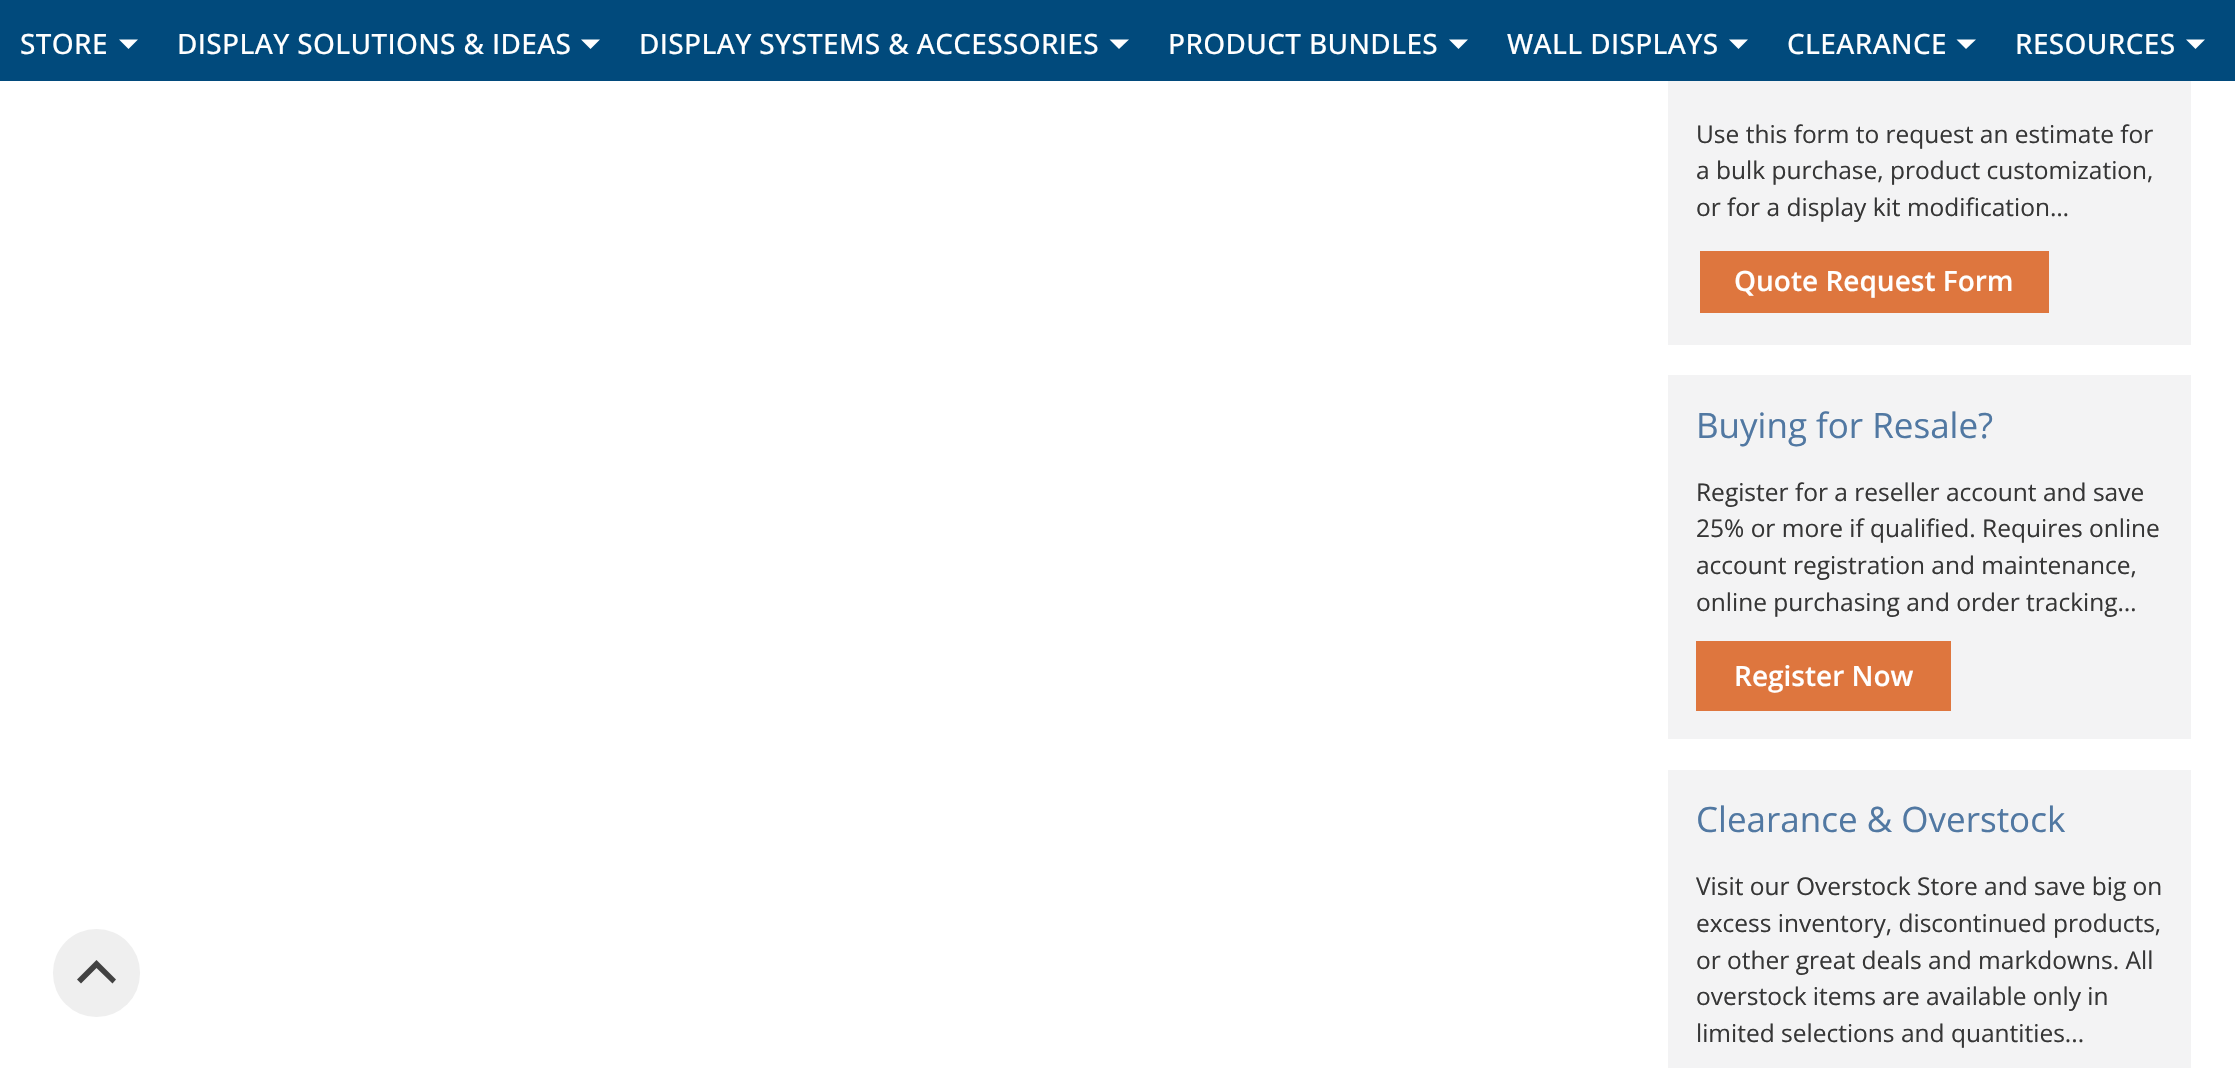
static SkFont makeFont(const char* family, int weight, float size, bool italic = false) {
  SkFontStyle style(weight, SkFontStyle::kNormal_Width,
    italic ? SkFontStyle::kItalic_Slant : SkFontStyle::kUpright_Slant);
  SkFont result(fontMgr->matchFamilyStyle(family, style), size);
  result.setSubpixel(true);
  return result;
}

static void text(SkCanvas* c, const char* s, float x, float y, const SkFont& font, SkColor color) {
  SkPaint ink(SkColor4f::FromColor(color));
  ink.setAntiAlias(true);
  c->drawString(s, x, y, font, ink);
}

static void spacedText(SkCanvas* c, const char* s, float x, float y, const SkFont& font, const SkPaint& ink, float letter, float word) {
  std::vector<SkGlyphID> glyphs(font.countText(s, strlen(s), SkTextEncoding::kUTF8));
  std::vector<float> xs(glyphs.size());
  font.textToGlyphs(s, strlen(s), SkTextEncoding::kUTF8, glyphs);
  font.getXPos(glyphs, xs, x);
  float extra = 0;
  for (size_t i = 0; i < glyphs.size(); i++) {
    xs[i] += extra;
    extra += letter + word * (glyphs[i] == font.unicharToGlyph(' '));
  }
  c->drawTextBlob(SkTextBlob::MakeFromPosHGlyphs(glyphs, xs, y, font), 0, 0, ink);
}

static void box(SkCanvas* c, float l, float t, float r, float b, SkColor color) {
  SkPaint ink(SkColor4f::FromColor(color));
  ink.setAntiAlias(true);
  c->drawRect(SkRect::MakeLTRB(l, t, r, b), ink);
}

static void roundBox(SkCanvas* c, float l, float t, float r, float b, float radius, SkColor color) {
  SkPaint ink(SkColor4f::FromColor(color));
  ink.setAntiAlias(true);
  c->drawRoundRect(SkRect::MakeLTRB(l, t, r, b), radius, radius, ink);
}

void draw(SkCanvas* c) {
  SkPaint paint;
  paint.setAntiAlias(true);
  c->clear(0xffffffff);
  box(c, 0, 0, 2235, 81, 0xff014a7c);
  SkFont face1 = makeFont("Open Sans", 500, 28);
  paint.setColor(0xffffffff);
  spacedText(c, "STORE", 20, 54, face1, paint, 0.35f, 0);
  c->drawPath(SkPathBuilder().moveTo(119, 39.5f).lineTo(138, 39.5f).lineTo(128.5f, 49).close().detach(), paint);
  spacedText(c, "DISPLAY SOLUTIONS & IDEAS", 177, 54, face1, paint, 0.35f, 0);
  c->drawPath(SkPathBuilder().moveTo(581, 39.5f).lineTo(600, 39.5f).lineTo(590.5f, 49).close().detach(), paint);
  spacedText(c, "DISPLAY SYSTEMS & ACCESSORIES", 639, 54, face1, paint, 0.35f, 0);
  c->drawPath(SkPathBuilder().moveTo(1109.5f, 39.5f).lineTo(1129, 39.5f).lineTo(1119, 49).close().detach(), paint);
  spacedText(c, "PRODUCT BUNDLES", 1168, 54, face1, paint, 0.35f, 0);
  c->drawPath(SkPathBuilder().moveTo(1449, 39.5f).lineTo(1468, 39.5f).lineTo(1458.5f, 49).close().detach(), paint);
  spacedText(c, "WALL DISPLAYS", 1507, 54, face1, paint, 0.35f, 0);
  c->drawPath(SkPathBuilder().moveTo(1729, 39.5f).lineTo(1748, 39.5f).lineTo(1738.5f, 49).close().detach(), paint);
  spacedText(c, "CLEARANCE", 1787, 54, face1, paint, 0.35f, 0);
  c->drawPath(SkPathBuilder().moveTo(1956.5f, 39.5f).lineTo(1976, 39.5f).lineTo(1966, 49).close().detach(), paint);
  spacedText(c, "RESOURCES", 2015, 54, face1, paint, 0.35f, 0);
  c->drawPath(SkPathBuilder().moveTo(2186, 39.5f).lineTo(2205, 39.5f).lineTo(2195.5f, 49).close().detach(), paint);
  box(c, 1668, 81, 2191, 345, 0xfff3f3f4);
  SkFont face2 = makeFont("Open Sans", 400, 24.5f);
  text(c, "Use this form to request an estimate for", 1696, 143, face2, 0xff363636);
  text(c, "a bulk purchase, product customization,", 1696, 179, face2, 0xff363636);
  text(c, "or for a display kit modification…", 1696, 216, face2, 0xff363636);
  box(c, 1700, 251, 2049, 313, 0xffde763e);
  SkFont face3 = makeFont("Open Sans", 600, 28);
  text(c, "Quote Request Form", 1734, 291, face3, 0xffffffff);
  box(c, 1668, 375, 2191, 739, 0xfff3f3f4);
  SkFont face4 = makeFont("Open Sans", 400, 35);
  text(c, "Buying for Resale?", 1696, 438, face4, 0xff5178a2);
  text(c, "Register for a reseller account and save", 1696, 501, face2, 0xff363636);
  text(c, "25% or more if qualified. Requires online", 1696, 537, face2, 0xff363636);
  text(c, "account registration and maintenance,", 1696, 574, face2, 0xff363636);
  text(c, "online purchasing and order tracking…", 1696, 611, face2, 0xff363636);
  box(c, 1696, 641, 1951, 711, 0xffde763e);
  text(c, "Register Now", 1734, 686, face3, 0xffffffff);
  box(c, 1668, 770, 2191, 1068, 0xfff3f3f4);
  text(c, "Clearance & Overstock", 1696, 832, face4, 0xff5178a2);
  text(c, "Visit our Overstock Store and save big on", 1696, 895, face2, 0xff363636);
  text(c, "excess inventory, discontinued products,", 1696, 932, face2, 0xff363636);
  text(c, "or other great deals and markdowns. All", 1696, 969, face2, 0xff363636);
  text(c, "overstock items are available only in", 1696, 1005, face2, 0xff363636);
  text(c, "limited selections and quantities...", 1696, 1042, face2, 0xff363636);
  roundBox(c, 53, 929, 140, 1017, 43.5f, 0xffefefef);
  paint.setColor(0xff424242);
  c->drawPath(SkPathBuilder().moveTo(116, 979.5f).lineTo(96.5f, 960).lineTo(77, 979.5f).lineTo(81, 983.5f).lineTo(96.5f, 968).lineTo(112.5f, 983.5f).close().detach(), paint);
}
